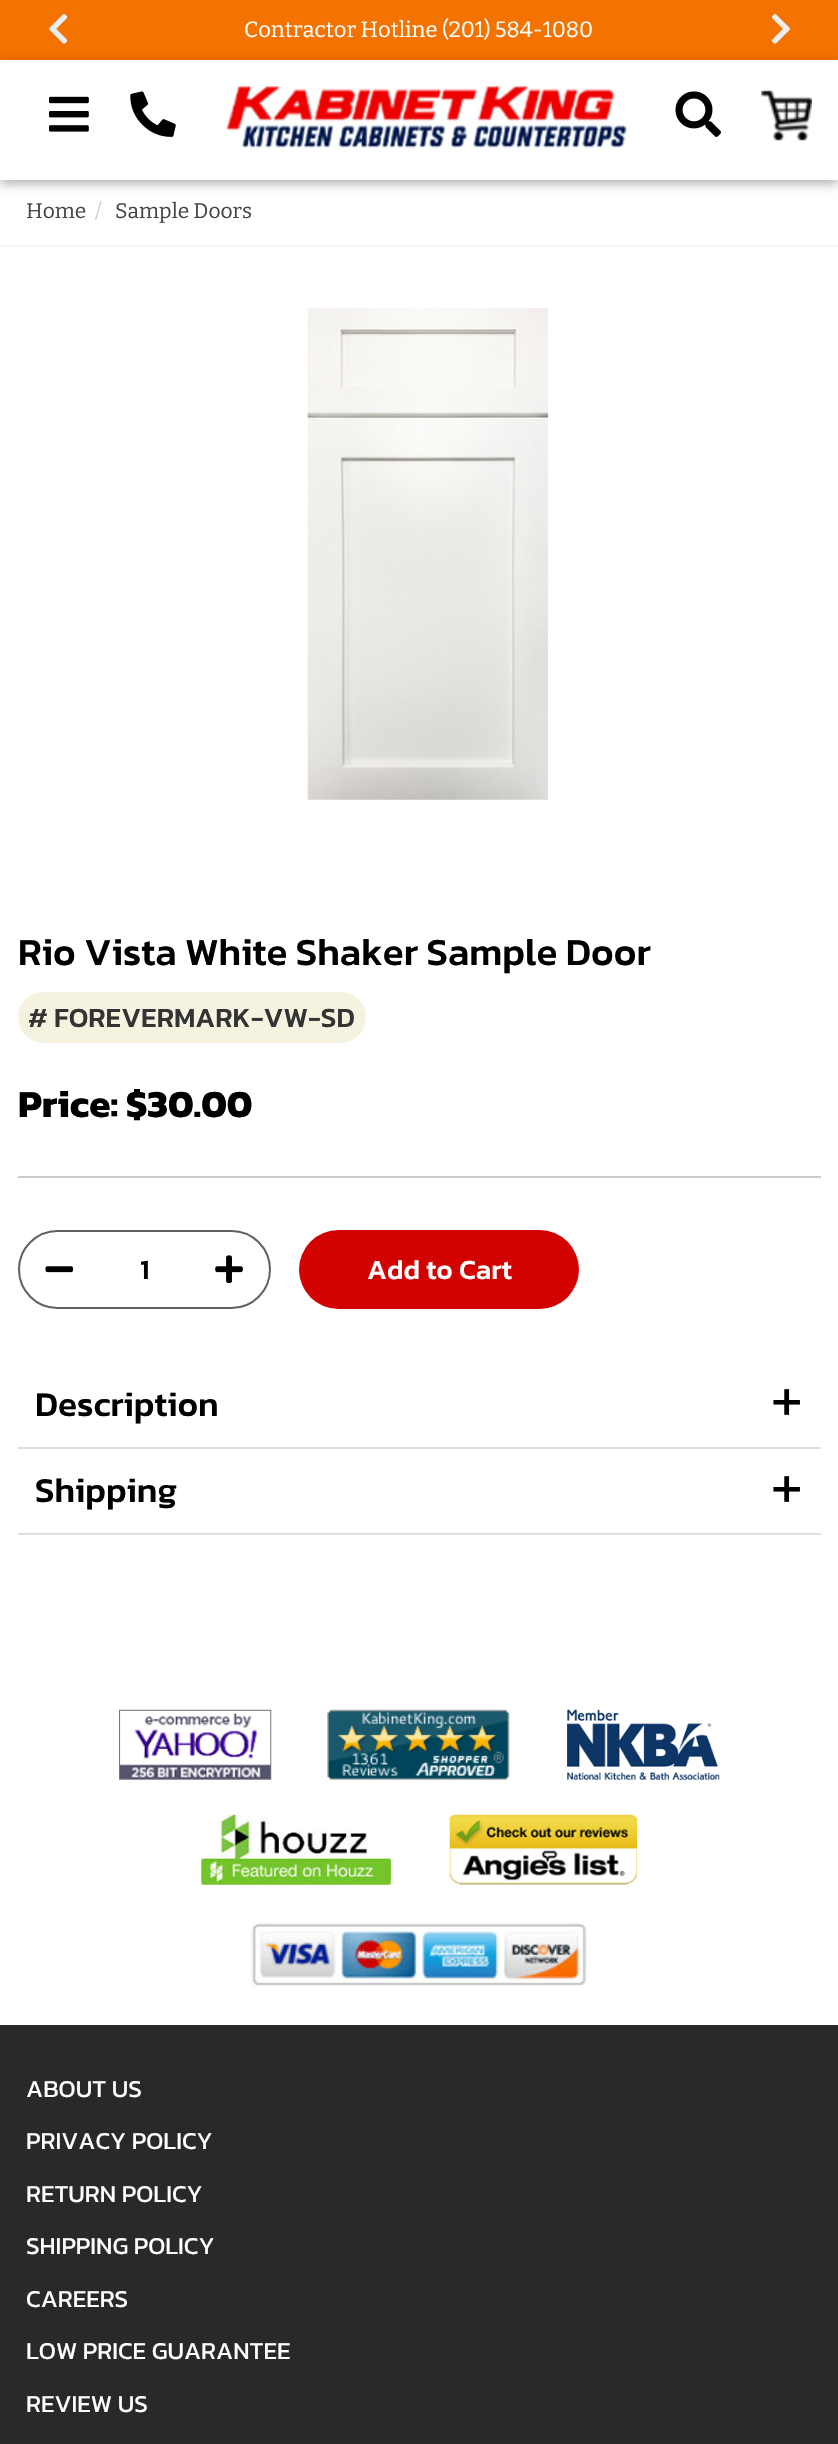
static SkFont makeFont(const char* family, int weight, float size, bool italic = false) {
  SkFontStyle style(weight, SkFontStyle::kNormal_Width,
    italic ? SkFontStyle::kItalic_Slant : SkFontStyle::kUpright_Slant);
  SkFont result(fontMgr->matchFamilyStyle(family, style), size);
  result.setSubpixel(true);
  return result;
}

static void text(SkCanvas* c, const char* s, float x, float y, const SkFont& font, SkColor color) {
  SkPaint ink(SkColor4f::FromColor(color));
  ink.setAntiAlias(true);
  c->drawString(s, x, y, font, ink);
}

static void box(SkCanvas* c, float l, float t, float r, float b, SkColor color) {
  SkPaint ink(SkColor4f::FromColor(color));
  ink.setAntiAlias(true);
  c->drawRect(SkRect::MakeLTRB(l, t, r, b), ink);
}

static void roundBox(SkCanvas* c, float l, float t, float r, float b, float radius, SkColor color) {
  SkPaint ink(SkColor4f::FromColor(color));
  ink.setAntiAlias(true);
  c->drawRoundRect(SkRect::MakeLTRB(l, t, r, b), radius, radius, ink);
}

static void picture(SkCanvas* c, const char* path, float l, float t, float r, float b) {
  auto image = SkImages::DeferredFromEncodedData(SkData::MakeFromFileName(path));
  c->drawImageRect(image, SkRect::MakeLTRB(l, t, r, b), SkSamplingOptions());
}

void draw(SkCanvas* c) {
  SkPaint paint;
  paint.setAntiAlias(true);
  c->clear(0xffffffff);
  box(c, 0, 0, 838, 60, 0xfff47200);
  picture(c, "img_01.png", 49, 14, 68, 44);
  SkFont face1 = makeFont("Bitter", 100, 22);
  text(c, "Contractor Hotline (201) 584-1080", 244, 37, face1, 0xffffffff);
  picture(c, "img_02.png", 771, 14, 790, 44);
  c->save();
  c->clipPath(SkPathBuilder(SkPathFillType::kEvenOdd).moveTo(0, 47).lineTo(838, 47).lineTo(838, 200).lineTo(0, 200).close().moveTo(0, 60).lineTo(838, 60).lineTo(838, 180).lineTo(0, 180).close().detach(), true);
  paint.setColor(0x4d000000);
  paint.setMaskFilter(SkMaskFilter::MakeBlur(kNormal_SkBlurStyle, 5));
  c->drawRect(SkRect::MakeLTRB(0, 63, 838, 184), paint);
  paint.setMaskFilter(nullptr);
  c->restore();
  picture(c, "img_03.png", 49, 96, 89, 132);
  picture(c, "img_04.png", 130, 91, 176, 137);
  picture(c, "img_05.png", 225, 86, 627, 148);
  picture(c, "img_06.png", 675, 91, 721, 137);
  picture(c, "img_07.png", 761, 90, 812, 141);
  box(c, 0, 245, 838, 247, 0xfff5f5f5);
  SkFont face2 = makeFont("Bitter", 100, 21);
  text(c, "Home", 26, 218, face2, 0xff444444);
  text(c, "/", 95, 218, face2, 0xffcccccc);
  text(c, "Sample Doors", 115, 218, face2, 0xff444444);
  picture(c, "img_08.png", 307, 308, 549, 800);
  SkFont face3 = makeFont("Kanit", 500, 38.5f);
  text(c, "Rio Vista White Shaker Sample Door", 18, 965, face3, 0xff000000);
  roundBox(c, 18, 992, 366, 1043, 25.5f, 0xfff5f2e0);
  SkFont face4 = makeFont("Kanit", 500, 28);
  text(c, "# FOREVERMARK-VW-SD", 28, 1027, face4, 0xff333333);
  SkFont face5 = makeFont("Kanit", 700, 38.5f);
  text(c, "Price: $30.00", 18, 1117, face5, 0xff000000);
  box(c, 18, 1176, 821, 1178, 0xffcacaca);
  paint.setStyle(SkPaint::kStroke_Style);
  paint.setStrokeWidth(2);
  paint.setColor(0xff616060);
  c->drawRoundRect(SkRect::MakeLTRB(19, 1231, 270, 1308), 38.5f, 38.5f, paint);
  picture(c, "img_09.png", 45, 1266, 74, 1273);
  text(c, "1", 140, 1279, face4, 0xff000000);
  picture(c, "img_10.png", 215, 1255, 243, 1283);
  roundBox(c, 299, 1230, 579, 1309, 39.5f, 0xffd20201);
  text(c, "Add to Cart", 367, 1279, face4, 0xffffffff);
  box(c, 18, 1447, 821, 1449, 0xffdfdfdf);
  SkFont face6 = makeFont("Kanit", 500, 35);
  text(c, "Description", 35, 1416, face6, 0xff000000);
  SkFont face7 = makeFont("Kanit", 300, 70);
  text(c, "+", 770, 1421, face7, 0xff000000);
  box(c, 18, 1533, 821, 1535, 0xffdfdfdf);
  text(c, "Shipping", 35, 1502, face6, 0xff000000);
  text(c, "+", 770, 1508, face7, 0xff000000);
  picture(c, "img_11.png", 119, 1709, 272, 1780);
  picture(c, "img_12.png", 327, 1709, 510, 1780);
  picture(c, "img_13.png", 567, 1709, 720, 1780);
  picture(c, "img_14.png", 201, 1814, 392, 1885);
  picture(c, "img_15.png", 449, 1814, 637, 1885);
  picture(c, "img_16.png", 251, 1922, 587, 1986);
  box(c, 0, 2025, 838, 2444, 0xff2a2929);
  SkFont face8 = makeFont("Kanit", 400, 24.5f);
  text(c, "ABOUT US", 26, 2097, face8, 0xffffffff);
  text(c, "PRIVACY POLICY", 26, 2149, face8, 0xffffffff);
  text(c, "RETURN POLICY", 26, 2202, face8, 0xffffffff);
  text(c, "SHIPPING POLICY", 26, 2254, face8, 0xffffffff);
  text(c, "CAREERS", 26, 2307, face8, 0xffffffff);
  text(c, "LOW PRICE GUARANTEE", 26, 2359, face8, 0xffffffff);
  text(c, "REVIEW US", 26, 2412, face8, 0xffffffff);
}
